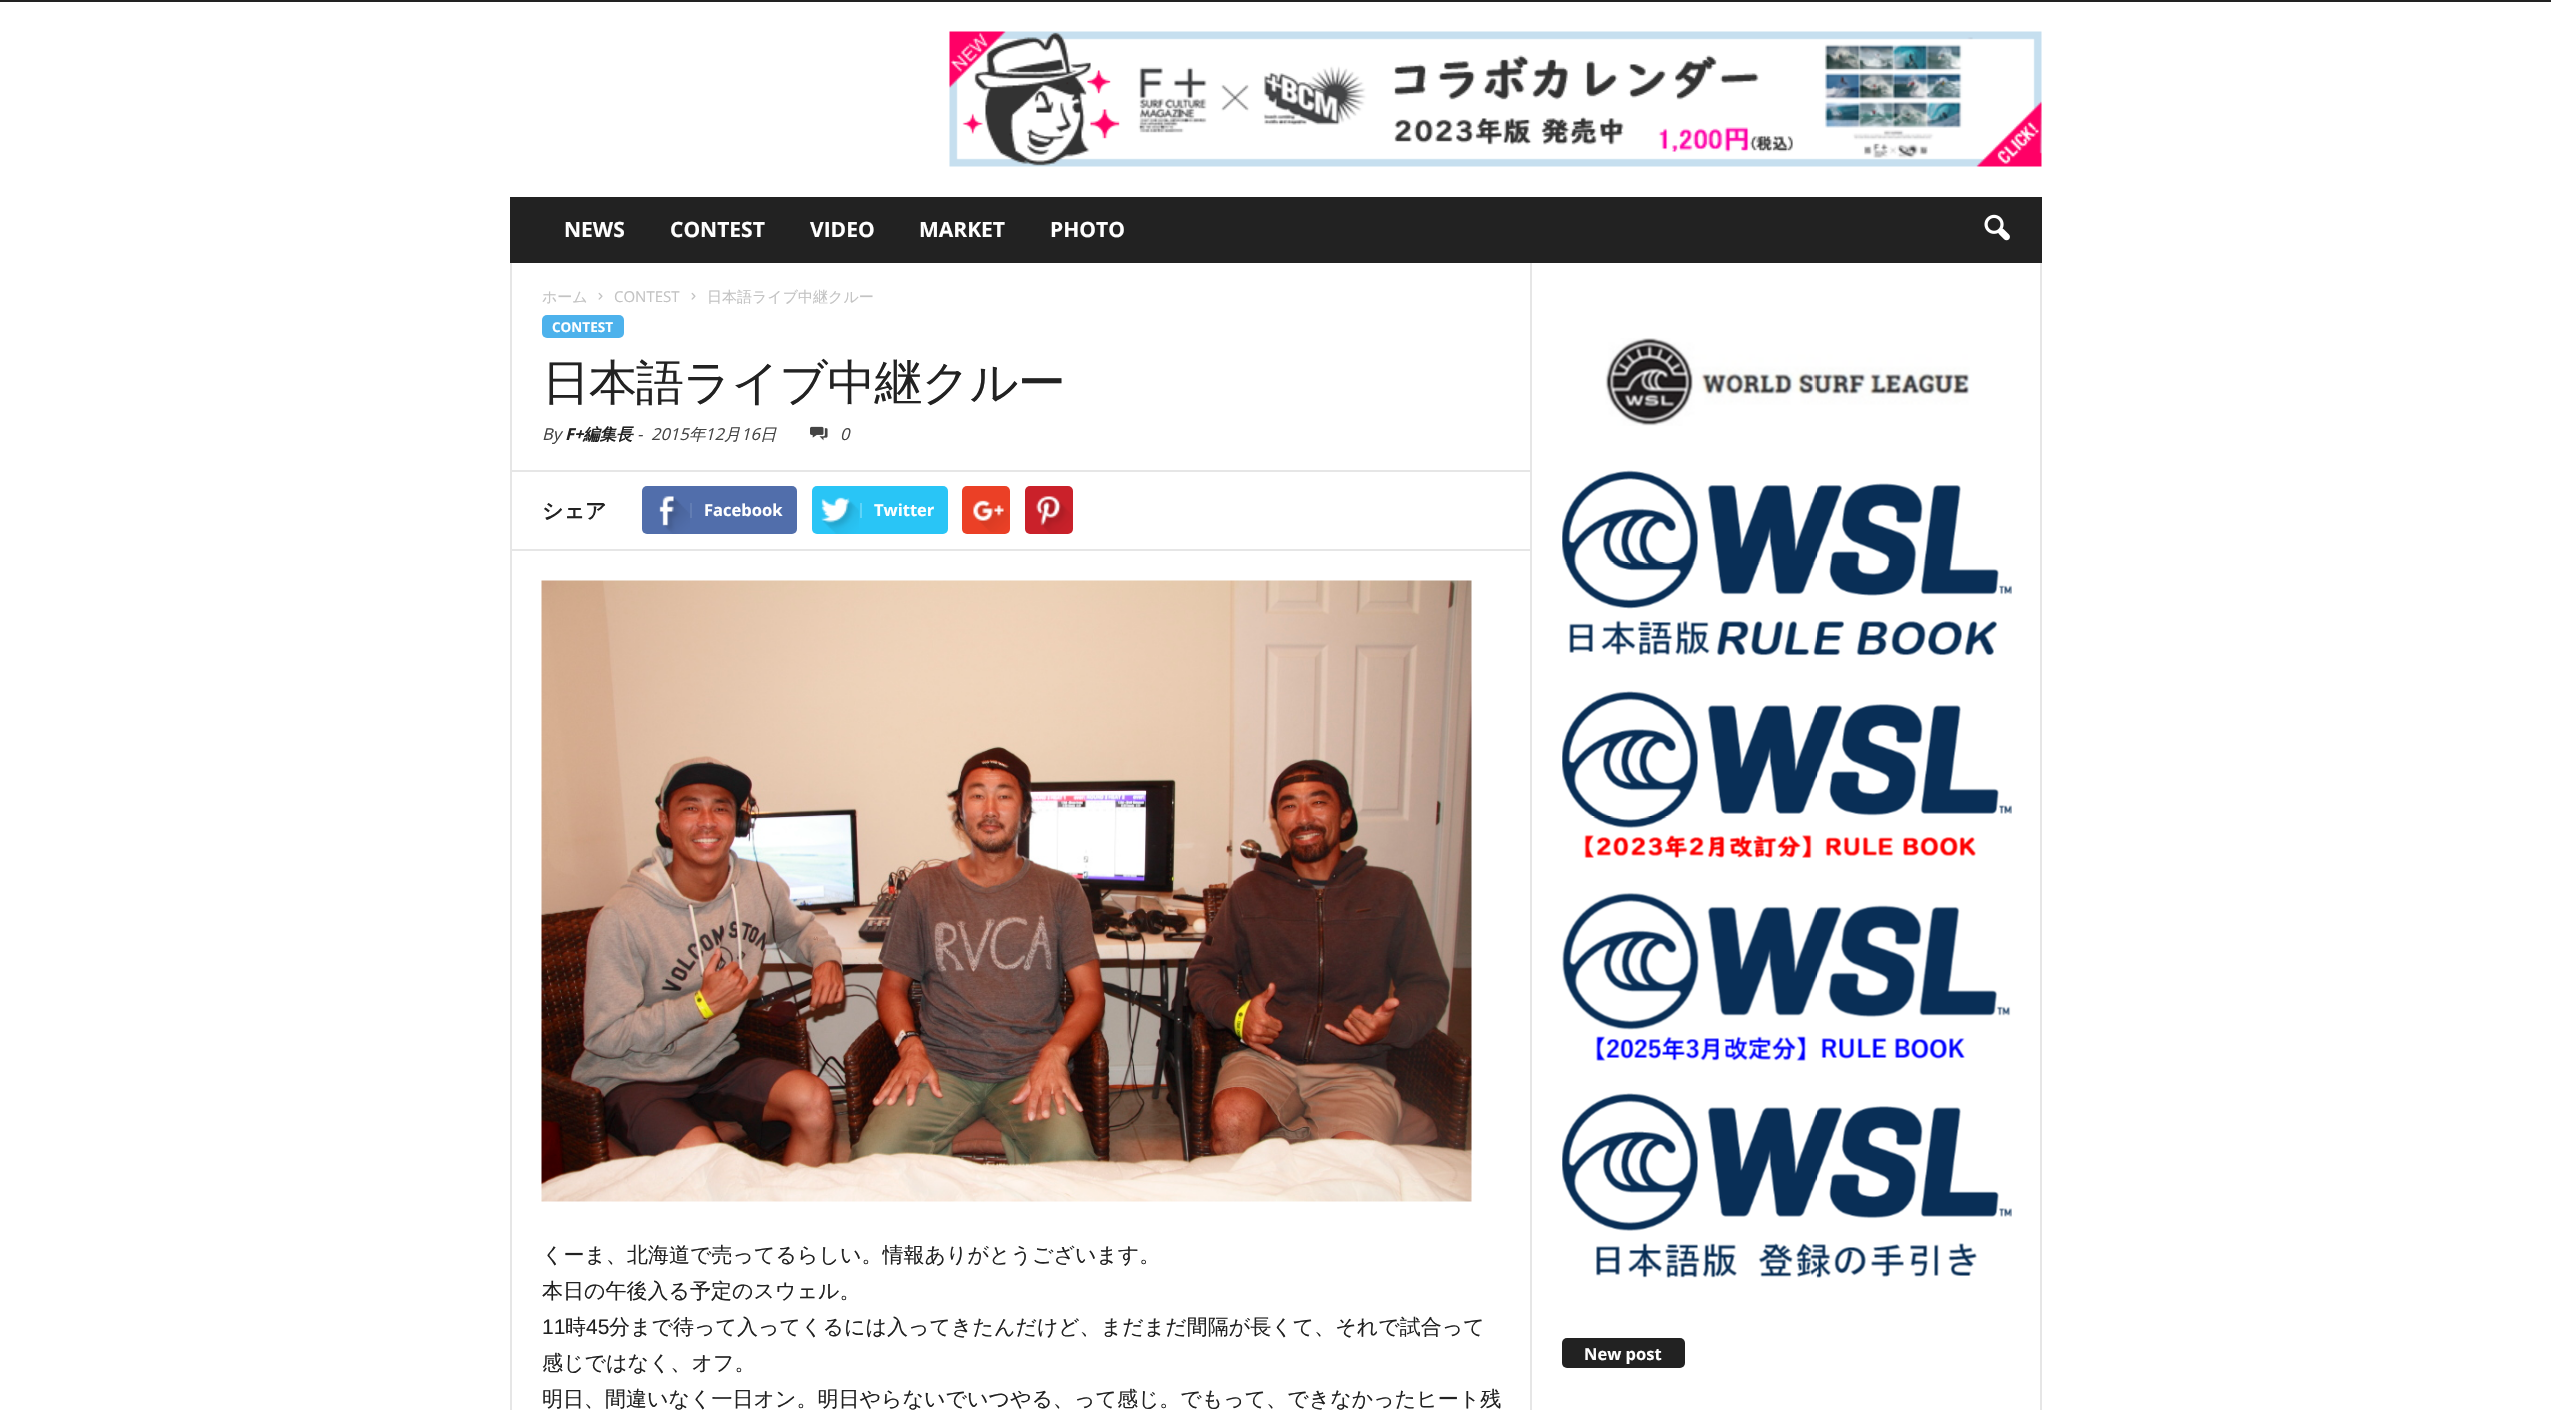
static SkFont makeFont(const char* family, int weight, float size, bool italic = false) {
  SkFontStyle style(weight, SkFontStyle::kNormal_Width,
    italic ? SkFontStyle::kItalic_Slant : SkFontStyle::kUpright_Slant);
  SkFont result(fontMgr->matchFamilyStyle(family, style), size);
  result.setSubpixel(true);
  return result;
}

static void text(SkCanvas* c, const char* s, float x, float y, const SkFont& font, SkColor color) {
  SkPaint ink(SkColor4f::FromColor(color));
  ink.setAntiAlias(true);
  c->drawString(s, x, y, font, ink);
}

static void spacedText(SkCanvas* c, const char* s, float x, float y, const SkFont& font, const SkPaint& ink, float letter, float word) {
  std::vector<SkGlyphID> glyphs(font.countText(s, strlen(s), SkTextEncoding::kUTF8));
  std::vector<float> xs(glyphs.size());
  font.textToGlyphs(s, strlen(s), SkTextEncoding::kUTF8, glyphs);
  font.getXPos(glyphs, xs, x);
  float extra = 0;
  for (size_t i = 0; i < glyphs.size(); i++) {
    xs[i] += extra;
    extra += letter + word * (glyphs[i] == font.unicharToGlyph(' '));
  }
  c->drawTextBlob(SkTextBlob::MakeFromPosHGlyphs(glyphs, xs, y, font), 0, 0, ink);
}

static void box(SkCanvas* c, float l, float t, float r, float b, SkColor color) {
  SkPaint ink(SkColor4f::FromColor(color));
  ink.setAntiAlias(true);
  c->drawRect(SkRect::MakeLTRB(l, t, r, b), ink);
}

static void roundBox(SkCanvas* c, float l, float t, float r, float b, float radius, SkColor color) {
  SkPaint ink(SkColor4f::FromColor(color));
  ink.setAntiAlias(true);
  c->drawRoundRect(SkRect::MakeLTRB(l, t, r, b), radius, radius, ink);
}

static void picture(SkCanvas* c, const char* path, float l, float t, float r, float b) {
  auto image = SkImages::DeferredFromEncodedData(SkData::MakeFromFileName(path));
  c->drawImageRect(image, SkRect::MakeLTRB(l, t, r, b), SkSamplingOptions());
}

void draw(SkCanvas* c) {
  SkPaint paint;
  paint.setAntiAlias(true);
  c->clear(0xffffffff);
  box(c, 0, 0, 2551, 2, 0xff222222);
  picture(c, "img_01.png", 949, 31, 2042, 167);
  box(c, 510, 197, 2042, 263, 0xff222222);
  SkFont face1 = makeFont("Open Sans", 700, 21);
  text(c, "NEWS", 564, 237, face1, 0xffffffff);
  text(c, "CONTEST", 670, 237, face1, 0xffffffff);
  text(c, "VIDEO", 810, 237, face1, 0xffffffff);
  text(c, "MARKET", 919, 237, face1, 0xffffffff);
  text(c, "PHOTO", 1050, 237, face1, 0xffffffff);
  picture(c, "img_02.png", 1984, 214, 2010, 241);
  box(c, 510, 263, 512, 1410, 0xffe6e6e6);
  SkFont face2 = makeFont("WenQuanYi Zen Hei", 500, 15);
  text(c, "ホーム", 542, 302, face2, 0xffc3c3c3);
  picture(c, "img_03.png", 598, 292, 603, 300);
  SkFont face3 = makeFont("Open Sans", 400, 15);
  text(c, "CONTEST", 614, 302, face3, 0xffc3c3c3);
  picture(c, "img_03.png", 691, 292, 696, 300);
  text(c, "日本語ライブ中継クルー", 707, 302, face2, 0xffc3c3c3);
  roundBox(c, 542, 315, 624, 338, 5, 0xff4db2ec);
  SkFont face4 = makeFont("Open Sans", 700, 13.5f);
  text(c, "CONTEST", 552, 332, face4, 0xffffffff);
  SkFont face5 = makeFont("WenQuanYi Zen Hei", 500, 48);
  paint.setColor(0xff222222);
  spacedText(c, "日本語ライブ中継クルー", 542, 399, face5, paint, -1, 0);
  SkFont face6 = makeFont("Open Sans", 400, 16.5f, true);
  text(c, "By", 542, 440, face6, 0xff444444);
  SkFont face7 = makeFont("Open Sans", 700, 16.5f, true);
  text(c, "F+", 565, 440, face7, 0xff222222);
  SkFont face8 = makeFont("WenQuanYi Zen Hei", 700, 16.5f, true);
  text(c, "編集長", 583, 440, face8, 0xff222222);
  text(c, "-", 637, 440, face6, 0xff444444);
  text(c, "2015", 651, 440, face6, 0xff444444);
  SkFont face9 = makeFont("WenQuanYi Zen Hei", 500, 16.5f, true);
  text(c, "年", 689, 440, face9, 0xff444444);
  text(c, "12", 705, 440, face6, 0xff444444);
  text(c, "月", 724, 440, face9, 0xff444444);
  text(c, "16", 741, 440, face6, 0xff444444);
  text(c, "日", 760, 440, face9, 0xff444444);
  picture(c, "img_04.png", 810, 426, 828, 441);
  text(c, "0", 840, 440, face6, 0xff444444);
  box(c, 512, 470, 1530, 472, 0xffe6e6e6);
  SkFont face10 = makeFont("WenQuanYi Zen Hei", 700, 21);
  text(c, "シェア", 542, 518, face10, 0xff222222);
  roundBox(c, 642, 486, 797, 534, 5, 0xff516eab);
  picture(c, "img_05.png", 659, 496, 690, 534);
  box(c, 690, 503, 692, 518, 0xff627db3);
  SkFont face11 = makeFont("Open Sans", 700, 16.5f);
  text(c, "Facebook", 704, 516, face11, 0xffffffff);
  roundBox(c, 812, 486, 948, 534, 5, 0xff29c5f6);
  picture(c, "img_06.png", 821, 497, 859, 534);
  box(c, 860, 503, 862, 518, 0xff5fd4f8);
  text(c, "Twitter", 874, 516, face11, 0xffffffff);
  roundBox(c, 962, 486, 1010, 534, 5, 0xffeb4026);
  picture(c, "img_07.png", 973, 500, 1009, 532);
  roundBox(c, 1025, 486, 1073, 534, 5, 0xffca212a);
  picture(c, "img_08.png", 1036, 496, 1072, 534);
  box(c, 512, 549, 1530, 551, 0xffe6e6e6);
  picture(c, "img_09.png", 541, 580, 1472, 1202);
  SkFont face12 = makeFont("WenQuanYi Zen Hei", 500, 21);
  text(c, "くーま、北海道で売ってるらしい。情報ありがとうございます。", 542, 1262, face12, 0xff222222);
  text(c, "本日の午後入る予定のスウェル。", 542, 1298, face12, 0xff222222);
  SkFont face13 = makeFont("Liberation Sans", 400, 21);
  text(c, "11", 542, 1334, face13, 0xff222222);
  text(c, "時", 565, 1334, face12, 0xff222222);
  text(c, "45", 586, 1334, face13, 0xff222222);
  text(c, "分まで待って入ってくるには入ってきたんだけど、まだまだ間隔が長くて、それで試合って", 609, 1334, face12, 0xff222222);
  text(c, "感じではなく、オフ。", 542, 1370, face12, 0xff222222);
  text(c, "明日、間違いなく一日オン。明日やらないでいつやる、って感じ。でもって、できなかったヒート残", 542, 1406, face12, 0xff222222);
  box(c, 1530, 263, 1532, 1410, 0xffe6e6e6);
  picture(c, "img_10.png", 1605, 338, 1970, 426);
  picture(c, "img_11.png", 1562, 470, 2012, 656);
  picture(c, "img_12.png", 1562, 691, 2012, 858);
  picture(c, "img_13.png", 1562, 892, 2011, 1061);
  picture(c, "img_14.png", 1562, 1093, 2012, 1278);
  roundBox(c, 1562, 1338, 1685, 1368, 5, 0xff222222);
  text(c, "New post", 1584, 1360, face11, 0xffffffff);
  box(c, 2040, 263, 2042, 1410, 0xffe6e6e6);
}
